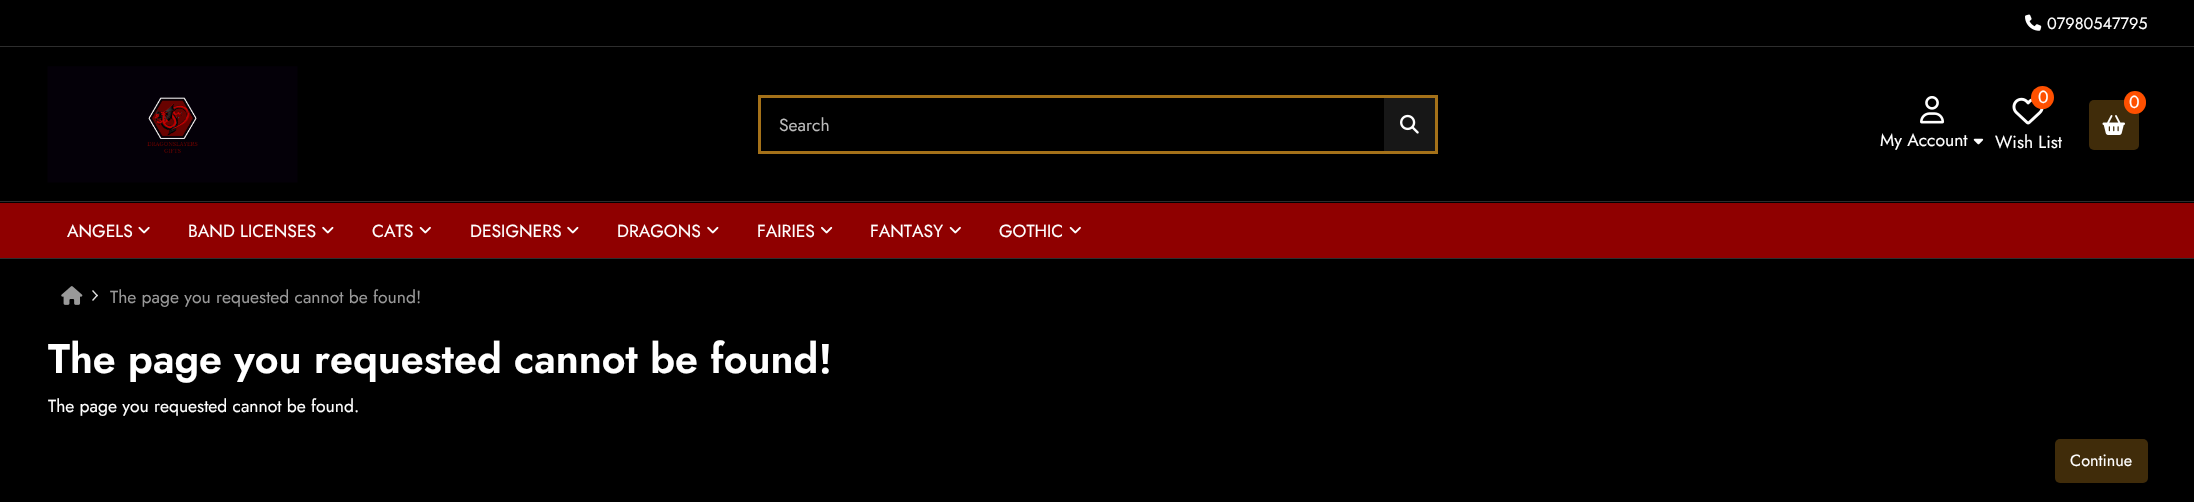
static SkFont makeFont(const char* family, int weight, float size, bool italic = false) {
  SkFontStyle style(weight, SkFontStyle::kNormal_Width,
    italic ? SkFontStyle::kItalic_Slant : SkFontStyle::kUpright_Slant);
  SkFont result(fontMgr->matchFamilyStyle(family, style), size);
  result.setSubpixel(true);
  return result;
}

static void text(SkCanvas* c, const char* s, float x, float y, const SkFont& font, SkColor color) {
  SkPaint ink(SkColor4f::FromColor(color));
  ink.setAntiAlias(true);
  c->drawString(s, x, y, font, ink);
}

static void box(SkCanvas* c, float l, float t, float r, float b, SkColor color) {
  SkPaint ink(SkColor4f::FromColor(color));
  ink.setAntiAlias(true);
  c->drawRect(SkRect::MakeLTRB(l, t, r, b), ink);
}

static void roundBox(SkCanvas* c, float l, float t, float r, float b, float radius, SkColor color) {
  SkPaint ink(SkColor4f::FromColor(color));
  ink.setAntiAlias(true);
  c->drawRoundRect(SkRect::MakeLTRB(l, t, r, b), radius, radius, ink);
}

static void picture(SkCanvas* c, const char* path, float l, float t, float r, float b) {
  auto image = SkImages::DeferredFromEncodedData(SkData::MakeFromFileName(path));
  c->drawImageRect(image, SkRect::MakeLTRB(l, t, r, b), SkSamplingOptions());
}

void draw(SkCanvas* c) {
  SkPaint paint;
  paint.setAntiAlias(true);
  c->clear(0xff000000);
  box(c, 0, 46, 2194, 47, 0xff2d2d2d);
  picture(c, "img_01.png", 2025, 14, 2042, 31);
  SkFont face1 = makeFont("Jost", 400, 16.25f);
  text(c, "07980547795", 2047, 29, face1, 0xffffffff);
  box(c, 0, 201, 2194, 202, 0xff2d2d2d);
  picture(c, "img_02.png", 47, 66, 298, 183);
  paint.setStyle(SkPaint::kStroke_Style);
  paint.setStrokeWidth(3);
  paint.setColor(0xffa47119);
  c->drawRect(SkRect::MakeLTRB(759.5f, 96.5f, 1436.5f, 152.5f), paint);
  SkFont face2 = makeFont("Jost", 400, 17.5f);
  text(c, "Search", 779, 131, face2, 0xffbbbbbb);
  box(c, 1384, 98, 1435, 151, 0xff171717);
  picture(c, "img_03.png", 1400, 114, 1419, 134);
  picture(c, "img_04.png", 1920, 96, 1945, 124);
  text(c, "My Account", 1880, 146, face2, 0xffffffff);
  picture(c, "img_05.png", 1973, 138, 1984, 145);
  picture(c, "img_06.png", 2012, 97, 2044, 125);
  paint.setStyle(SkPaint::kFill_Style);
  paint.setColor(0xffff5000);
  c->drawCircle(2042.5f, 97.5f, 11.5f, paint);
  text(c, "0", 2038, 103, face2, 0xffffffff);
  text(c, "Wish List", 1995, 148, face2, 0xffffffff);
  roundBox(c, 2089, 100, 2139, 150, 5, 0xff402c0a);
  roundBox(c, 2124, 91, 2146, 114, 11, 0xffff5000);
  text(c, "0", 2129, 108, face2, 0xffffffff);
  picture(c, "img_07.png", 2102, 115, 2125, 135);
  box(c, 0, 203, 2194, 258, 0xff8f0000);
  box(c, 0, 258, 2194, 259, 0xff2d2d2d);
  text(c, "ANGELS", 67, 237, face2, 0xffffffff);
  picture(c, "img_08.png", 138, 226, 150, 234);
  text(c, "BAND LICENSES", 188, 237, face2, 0xffffffff);
  picture(c, "img_09.png", 322, 226, 334, 234);
  text(c, "CATS", 372, 237, face2, 0xffffffff);
  picture(c, "img_10.png", 419, 226, 431, 234);
  text(c, "DESIGNERS", 470, 237, face2, 0xffffffff);
  picture(c, "img_09.png", 567, 226, 579, 234);
  text(c, "DRAGONS", 617, 237, face2, 0xffffffff);
  picture(c, "img_09.png", 707, 226, 719, 234);
  text(c, "FAIRIES", 757, 237, face2, 0xffffffff);
  picture(c, "img_11.png", 821, 226, 833, 234);
  text(c, "FANTASY", 870, 237, face2, 0xffffffff);
  picture(c, "img_10.png", 949, 226, 961, 234);
  text(c, "GOTHIC", 999, 237, face2, 0xffffffff);
  picture(c, "img_10.png", 1069, 226, 1081, 234);
  picture(c, "img_12.png", 61, 286, 83, 305);
  paint.setColor(0xffdddddd);
  c->drawPath(SkPathBuilder().moveTo(92, 291).lineTo(93, 290).lineTo(98, 295.5f).lineTo(97, 296.5f).close().detach(), paint);
  c->drawPath(SkPathBuilder().moveTo(92, 300).lineTo(97, 294.5f).lineTo(98, 295.5f).lineTo(93, 301).close().detach(), paint);
  text(c, "The page you requested cannot be found!", 110, 303, face2, 0xff999999);
  SkFont face3 = makeFont("Jost", 600, 41.25f);
  text(c, "The page you requested cannot be found!", 48, 373, face3, 0xffffffff);
  text(c, "The page you requested cannot be found.", 48, 412, face2, 0xffffffff);
  roundBox(c, 2055, 439, 2148, 483, 5, 0xff402c0a);
  text(c, "Continue", 2070, 466, face1, 0xffffffff);
}
